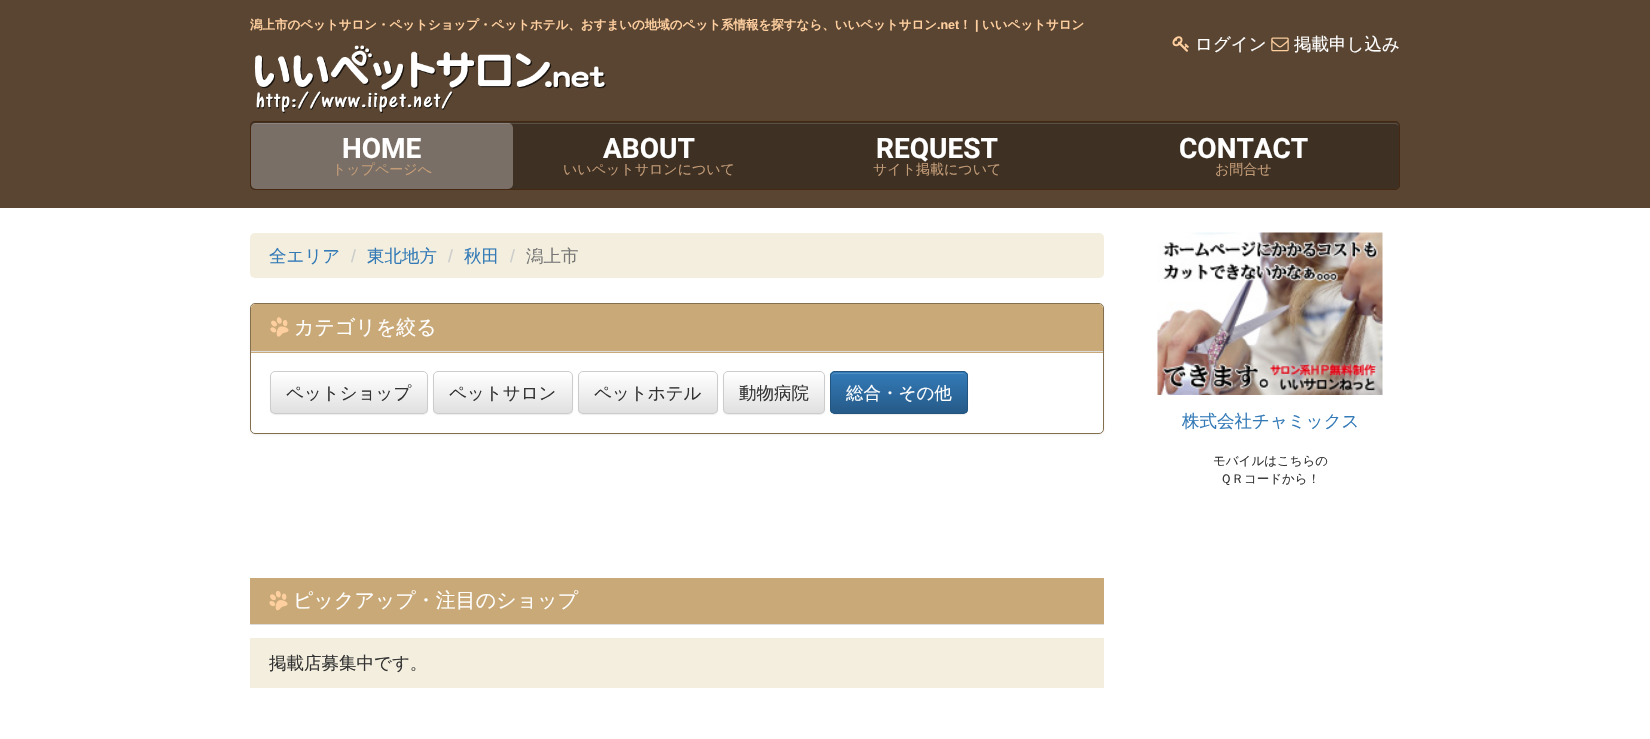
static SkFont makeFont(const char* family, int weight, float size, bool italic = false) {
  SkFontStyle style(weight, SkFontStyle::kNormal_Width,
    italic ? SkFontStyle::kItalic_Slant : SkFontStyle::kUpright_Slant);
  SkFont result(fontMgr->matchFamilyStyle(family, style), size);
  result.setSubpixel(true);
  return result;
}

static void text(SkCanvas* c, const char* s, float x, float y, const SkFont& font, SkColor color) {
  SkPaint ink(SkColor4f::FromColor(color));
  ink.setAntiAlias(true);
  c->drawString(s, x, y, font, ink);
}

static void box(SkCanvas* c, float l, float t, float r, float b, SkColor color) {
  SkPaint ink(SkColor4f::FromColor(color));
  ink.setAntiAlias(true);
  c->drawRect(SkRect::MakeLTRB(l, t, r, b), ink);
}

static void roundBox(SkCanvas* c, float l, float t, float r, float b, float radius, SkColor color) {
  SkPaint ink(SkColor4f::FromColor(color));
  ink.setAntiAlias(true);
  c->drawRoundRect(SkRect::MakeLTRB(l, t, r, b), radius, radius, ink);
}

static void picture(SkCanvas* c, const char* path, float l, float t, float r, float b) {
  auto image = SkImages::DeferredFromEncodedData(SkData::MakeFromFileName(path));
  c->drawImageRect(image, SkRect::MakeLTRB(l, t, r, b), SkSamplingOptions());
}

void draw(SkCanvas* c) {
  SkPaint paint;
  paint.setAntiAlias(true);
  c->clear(0xffffffff);
  box(c, 0, 0, 1650, 208, 0xff594532);
  SkFont face1 = makeFont("WenQuanYi Zen Hei", 700, 12.5f);
  text(c, "潟上市のペットサロン・ペットショップ・ペットホテル、おすまいの地域のペット系情報を探すなら、いいペットサロン", 250, 29, face1, 0xffffcf9f);
  SkFont face2 = makeFont("Liberation Sans", 700, 12.5f);
  text(c, ".net", 937, 29, face2, 0xffffcf9f);
  text(c, "！", 959, 29, face1, 0xffffcf9f);
  text(c, "|", 975, 29, face2, 0xffffcf9f);
  text(c, "いいペットサロン", 982, 29, face1, 0xffffcf9f);
  picture(c, "img_01.png", 255, 45, 606, 114);
  picture(c, "img_02.png", 1172, 36, 1189, 52);
  SkFont face3 = makeFont("WenQuanYi Zen Hei", 500, 17.5f);
  text(c, "ログイン", 1195, 50, face3, 0xffffffff);
  picture(c, "img_03.png", 1271, 37, 1289, 52);
  text(c, "掲載申し込み", 1294, 50, face3, 0xffffffff);
  roundBox(c, 250, 121, 1400, 190, 5, 0xff3e3023);
  paint.setColor(0xff5b4f44);
  c->drawPath(SkPathBuilder().moveTo(255, 124).lineTo(1395, 124).cubicTo(1397, 124, 1399, 125, 1399, 128).cubicTo(1399, 125, 1398, 123, 1395, 123).lineTo(255, 123).cubicTo(252, 123, 251, 125, 251, 128).cubicTo(251, 125, 253, 124, 255, 124).close().detach(), paint);
  paint.setStyle(SkPaint::kStroke_Style);
  paint.setStrokeWidth(1);
  paint.setColor(0xff442811);
  c->drawRoundRect(SkRect::MakeLTRB(250.5f, 121.5f, 1399.5f, 189.5f), 4.5f, 4.5f, paint);
  roundBox(c, 251, 123, 513, 189, 5, 0x4dffffff);
  SkFont face4 = makeFont("Roboto", 700, 28);
  text(c, "HOME", 342, 158, face4, 0xffffffff);
  SkFont face5 = makeFont("WenQuanYi Zen Hei", 500, 14);
  text(c, "トップページへ", 332, 174, face5, 0xffc29b77);
  text(c, "ABOUT", 603, 158, face4, 0xffffffff);
  text(c, "いいペットサロンについて", 563, 174, face5, 0xffc29b77);
  text(c, "REQUEST", 876, 158, face4, 0xffffffff);
  text(c, "サイト掲載について", 873, 174, face5, 0xffc29b77);
  text(c, "CONTACT", 1179, 158, face4, 0xffffffff);
  text(c, "お問合せ", 1215, 174, face5, 0xffc29b77);
  roundBox(c, 250, 233, 1104, 278, 5, 0xfff3eedd);
  text(c, "全エリア", 269, 262, face3, 0xff337ab7);
  SkFont face6 = makeFont("Liberation Sans", 400, 17.5f);
  text(c, "/", 351, 262, face6, 0xffcccccc);
  text(c, "東北地方", 367, 262, face3, 0xff337ab7);
  text(c, "/", 448, 262, face6, 0xffcccccc);
  text(c, "秋田", 464, 262, face3, 0xff337ab7);
  text(c, "/", 510, 262, face6, 0xffcccccc);
  text(c, "潟上市", 526, 262, face3, 0xff777777);
  paint.setStyle(SkPaint::kFill_Style);
  paint.setColor(0x0d000000);
  paint.setMaskFilter(SkMaskFilter::MakeBlur(kNormal_SkBlurStyle, 1));
  c->drawRoundRect(SkRect::MakeLTRB(250, 304, 1104, 435), 5, 5, paint);
  paint.setMaskFilter(nullptr);
  paint.setColor(0xffffffff);
  c->drawRoundRect(SkRect::MakeLTRB(250.5f, 303.5f, 1103.5f, 433.5f), 4.5f, 4.5f, paint);
  paint.setStyle(SkPaint::kStroke_Style);
  paint.setColor(0xff836e4e);
  c->drawRoundRect(SkRect::MakeLTRB(250.5f, 303.5f, 1103.5f, 433.5f), 4.5f, 4.5f, paint);
  paint.setStyle(SkPaint::kFill_Style);
  paint.setColor(0xffc9a977);
  c->drawPath(SkPathBuilder().moveTo(255, 304).lineTo(1099, 304).cubicTo(1101, 304, 1103, 306, 1103, 308).lineTo(1103, 353).lineTo(251, 353).lineTo(251, 308).cubicTo(251, 306, 253, 304, 255, 304).close().detach(), paint);
  box(c, 251, 351, 1103, 352, 0xffdddddd);
  picture(c, "img_04.png", 270, 317, 289, 337);
  SkFont face7 = makeFont("WenQuanYi Zen Hei", 500, 20);
  text(c, "カテゴリを絞る", 294, 334, face7, 0xffffffff);
  paint.setColor(0x12000000);
  paint.setMaskFilter(SkMaskFilter::MakeBlur(kNormal_SkBlurStyle, 0.5f));
  c->drawRoundRect(SkRect::MakeLTRB(270, 373, 428, 415), 5, 5, paint);
  paint.setMaskFilter(nullptr);
  roundBox(c, 270, 371, 428, 414, 5, 0xffffffff);
  c->save();
  c->clipPath(SkPathBuilder().moveTo(275, 371).lineTo(423, 371).cubicTo(426, 371, 428, 373, 428, 376).lineTo(428, 409).cubicTo(428, 412, 426, 414, 423, 414).lineTo(275, 414).cubicTo(272, 414, 270, 412, 270, 409).lineTo(270, 376).cubicTo(270, 373, 272, 371, 275, 371).close().detach(), true);
  {
    const SkColor colors[] = {0xffffffff, 0xffe0e0e0};
    const float stops[] = {0, 1};
    const SkPoint ends[] = {{349, 373}, {349, 413}};
    paint.setShader(SkGradientShader::MakeLinear(ends, colors, stops, 2, SkTileMode::kClamp));
    paint.setAlpha(255);
  }
  c->drawRect(SkRect::MakeLTRB(270, 373, 428, 413), paint);
  c->restore();
  paint.setStyle(SkPaint::kStroke_Style);
  paint.setShader(nullptr);
  paint.setColor(0xffcccccc);
  c->drawRoundRect(SkRect::MakeLTRB(270.5f, 371.5f, 427.5f, 413.5f), 4.5f, 4.5f, paint);
  text(c, "ペットショップ", 286, 399, face3, 0xff333333);
  paint.setStyle(SkPaint::kFill_Style);
  paint.setColor(0x12000000);
  paint.setMaskFilter(SkMaskFilter::MakeBlur(kNormal_SkBlurStyle, 0.5f));
  c->drawRoundRect(SkRect::MakeLTRB(433, 373, 573, 415), 5, 5, paint);
  paint.setMaskFilter(nullptr);
  roundBox(c, 433, 371, 573, 414, 5, 0xffffffff);
  c->save();
  c->clipPath(SkPathBuilder().moveTo(438, 371).lineTo(568, 371).cubicTo(571, 371, 573, 373, 573, 376).lineTo(573, 409).cubicTo(573, 412, 571, 414, 568, 414).lineTo(438, 414).cubicTo(435, 414, 433, 412, 433, 409).lineTo(433, 376).cubicTo(433, 373, 435, 371, 438, 371).close().detach(), true);
  {
    const SkColor colors[] = {0xffffffff, 0xffe0e0e0};
    const float stops[] = {0, 1};
    const SkPoint ends[] = {{503, 373}, {503, 413}};
    paint.setShader(SkGradientShader::MakeLinear(ends, colors, stops, 2, SkTileMode::kClamp));
    paint.setAlpha(255);
  }
  c->drawRect(SkRect::MakeLTRB(433, 373, 573, 413), paint);
  c->restore();
  paint.setStyle(SkPaint::kStroke_Style);
  paint.setShader(nullptr);
  paint.setColor(0xffcccccc);
  c->drawRoundRect(SkRect::MakeLTRB(433.5f, 371.5f, 572.5f, 413.5f), 4.5f, 4.5f, paint);
  text(c, "ペットサロン", 449, 399, face3, 0xff333333);
  paint.setStyle(SkPaint::kFill_Style);
  paint.setColor(0x12000000);
  paint.setMaskFilter(SkMaskFilter::MakeBlur(kNormal_SkBlurStyle, 0.5f));
  c->drawRoundRect(SkRect::MakeLTRB(578, 373, 718, 415), 5, 5, paint);
  paint.setMaskFilter(nullptr);
  roundBox(c, 578, 371, 718, 414, 5, 0xffffffff);
  c->save();
  c->clipPath(SkPathBuilder().moveTo(583, 371).lineTo(713, 371).cubicTo(716, 371, 718, 373, 718, 376).lineTo(718, 409).cubicTo(718, 412, 716, 414, 713, 414).lineTo(583, 414).cubicTo(580, 414, 578, 412, 578, 409).lineTo(578, 376).cubicTo(578, 373, 580, 371, 583, 371).close().detach(), true);
  {
    const SkColor colors[] = {0xffffffff, 0xffe0e0e0};
    const float stops[] = {0, 1};
    const SkPoint ends[] = {{648, 373}, {648, 413}};
    paint.setShader(SkGradientShader::MakeLinear(ends, colors, stops, 2, SkTileMode::kClamp));
    paint.setAlpha(255);
  }
  c->drawRect(SkRect::MakeLTRB(578, 373, 718, 413), paint);
  c->restore();
  paint.setStyle(SkPaint::kStroke_Style);
  paint.setShader(nullptr);
  paint.setColor(0xffcccccc);
  c->drawRoundRect(SkRect::MakeLTRB(578.5f, 371.5f, 717.5f, 413.5f), 4.5f, 4.5f, paint);
  text(c, "ペットホテル", 594, 399, face3, 0xff333333);
  paint.setStyle(SkPaint::kFill_Style);
  paint.setColor(0x12000000);
  paint.setMaskFilter(SkMaskFilter::MakeBlur(kNormal_SkBlurStyle, 0.5f));
  c->drawRoundRect(SkRect::MakeLTRB(723, 373, 825, 415), 5, 5, paint);
  paint.setMaskFilter(nullptr);
  roundBox(c, 723, 371, 825, 414, 5, 0xffffffff);
  c->save();
  c->clipPath(SkPathBuilder().moveTo(728, 371).lineTo(820, 371).cubicTo(823, 371, 825, 373, 825, 376).lineTo(825, 409).cubicTo(825, 412, 823, 414, 820, 414).lineTo(728, 414).cubicTo(725, 414, 723, 412, 723, 409).lineTo(723, 376).cubicTo(723, 373, 725, 371, 728, 371).close().detach(), true);
  {
    const SkColor colors[] = {0xffffffff, 0xffe0e0e0};
    const float stops[] = {0, 1};
    const SkPoint ends[] = {{774, 373}, {774, 413}};
    paint.setShader(SkGradientShader::MakeLinear(ends, colors, stops, 2, SkTileMode::kClamp));
    paint.setAlpha(255);
  }
  c->drawRect(SkRect::MakeLTRB(723, 373, 825, 413), paint);
  c->restore();
  paint.setStyle(SkPaint::kStroke_Style);
  paint.setShader(nullptr);
  paint.setColor(0xffcccccc);
  c->drawRoundRect(SkRect::MakeLTRB(723.5f, 371.5f, 824.5f, 413.5f), 4.5f, 4.5f, paint);
  text(c, "動物病院", 739, 399, face3, 0xff333333);
  paint.setStyle(SkPaint::kFill_Style);
  paint.setColor(0x12000000);
  paint.setMaskFilter(SkMaskFilter::MakeBlur(kNormal_SkBlurStyle, 0.5f));
  c->drawRoundRect(SkRect::MakeLTRB(830, 373, 968, 415), 5, 5, paint);
  paint.setMaskFilter(nullptr);
  roundBox(c, 830, 371, 968, 414, 5, 0xff337ab7);
  c->save();
  c->clipPath(SkPathBuilder().moveTo(835, 371).lineTo(963, 371).cubicTo(966, 371, 968, 373, 968, 376).lineTo(968, 409).cubicTo(968, 412, 966, 414, 963, 414).lineTo(835, 414).cubicTo(832, 414, 830, 412, 830, 409).lineTo(830, 376).cubicTo(830, 373, 832, 371, 835, 371).close().detach(), true);
  {
    const SkColor colors[] = {0xff337ab7, 0xff265a88};
    const float stops[] = {0, 1};
    const SkPoint ends[] = {{899, 373}, {899, 413}};
    paint.setShader(SkGradientShader::MakeLinear(ends, colors, stops, 2, SkTileMode::kClamp));
    paint.setAlpha(255);
  }
  c->drawRect(SkRect::MakeLTRB(830, 373, 968, 413), paint);
  c->restore();
  paint.setShader(nullptr);
  paint.setColor(0xff528ec1);
  c->drawPath(SkPathBuilder().moveTo(835, 374).lineTo(962, 374).cubicTo(965, 374, 966, 375, 966, 378).lineTo(966, 377).cubicTo(966, 375, 964, 373, 962, 373).lineTo(835, 373).cubicTo(833, 373, 831, 375, 831, 377).lineTo(831, 378).cubicTo(831, 375, 833, 374, 835, 374).close().detach(), paint);
  paint.setStyle(SkPaint::kStroke_Style);
  paint.setColor(0xff245580);
  c->drawRoundRect(SkRect::MakeLTRB(830.5f, 371.5f, 967.5f, 413.5f), 4.5f, 4.5f, paint);
  text(c, "総合・その他", 846, 399, face3, 0xffffffff);
  box(c, 250, 578, 1104, 624, 0xffc9a977);
  box(c, 250, 624, 1104, 625, 0xffdddddd);
  picture(c, "img_05.png", 269, 591, 288, 611);
  text(c, "ピックアップ・注目のショップ", 293, 607, face7, 0xffffffff);
  box(c, 250, 638, 1104, 688, 0xfff3eedd);
  text(c, "掲載店募集中です。", 269, 669, face3, 0xff333333);
  picture(c, "img_06.png", 1157, 232, 1383, 395);
  text(c, "株式会社チャミックス", 1182, 427, face3, 0xff337ab7);
  SkFont face8 = makeFont("WenQuanYi Zen Hei", 500, 12.5f);
  text(c, "モバイルはこちらの", 1213, 465, face8, 0xff333333);
  text(c, "ＱＲコードから！", 1220, 483, face8, 0xff333333);
}
